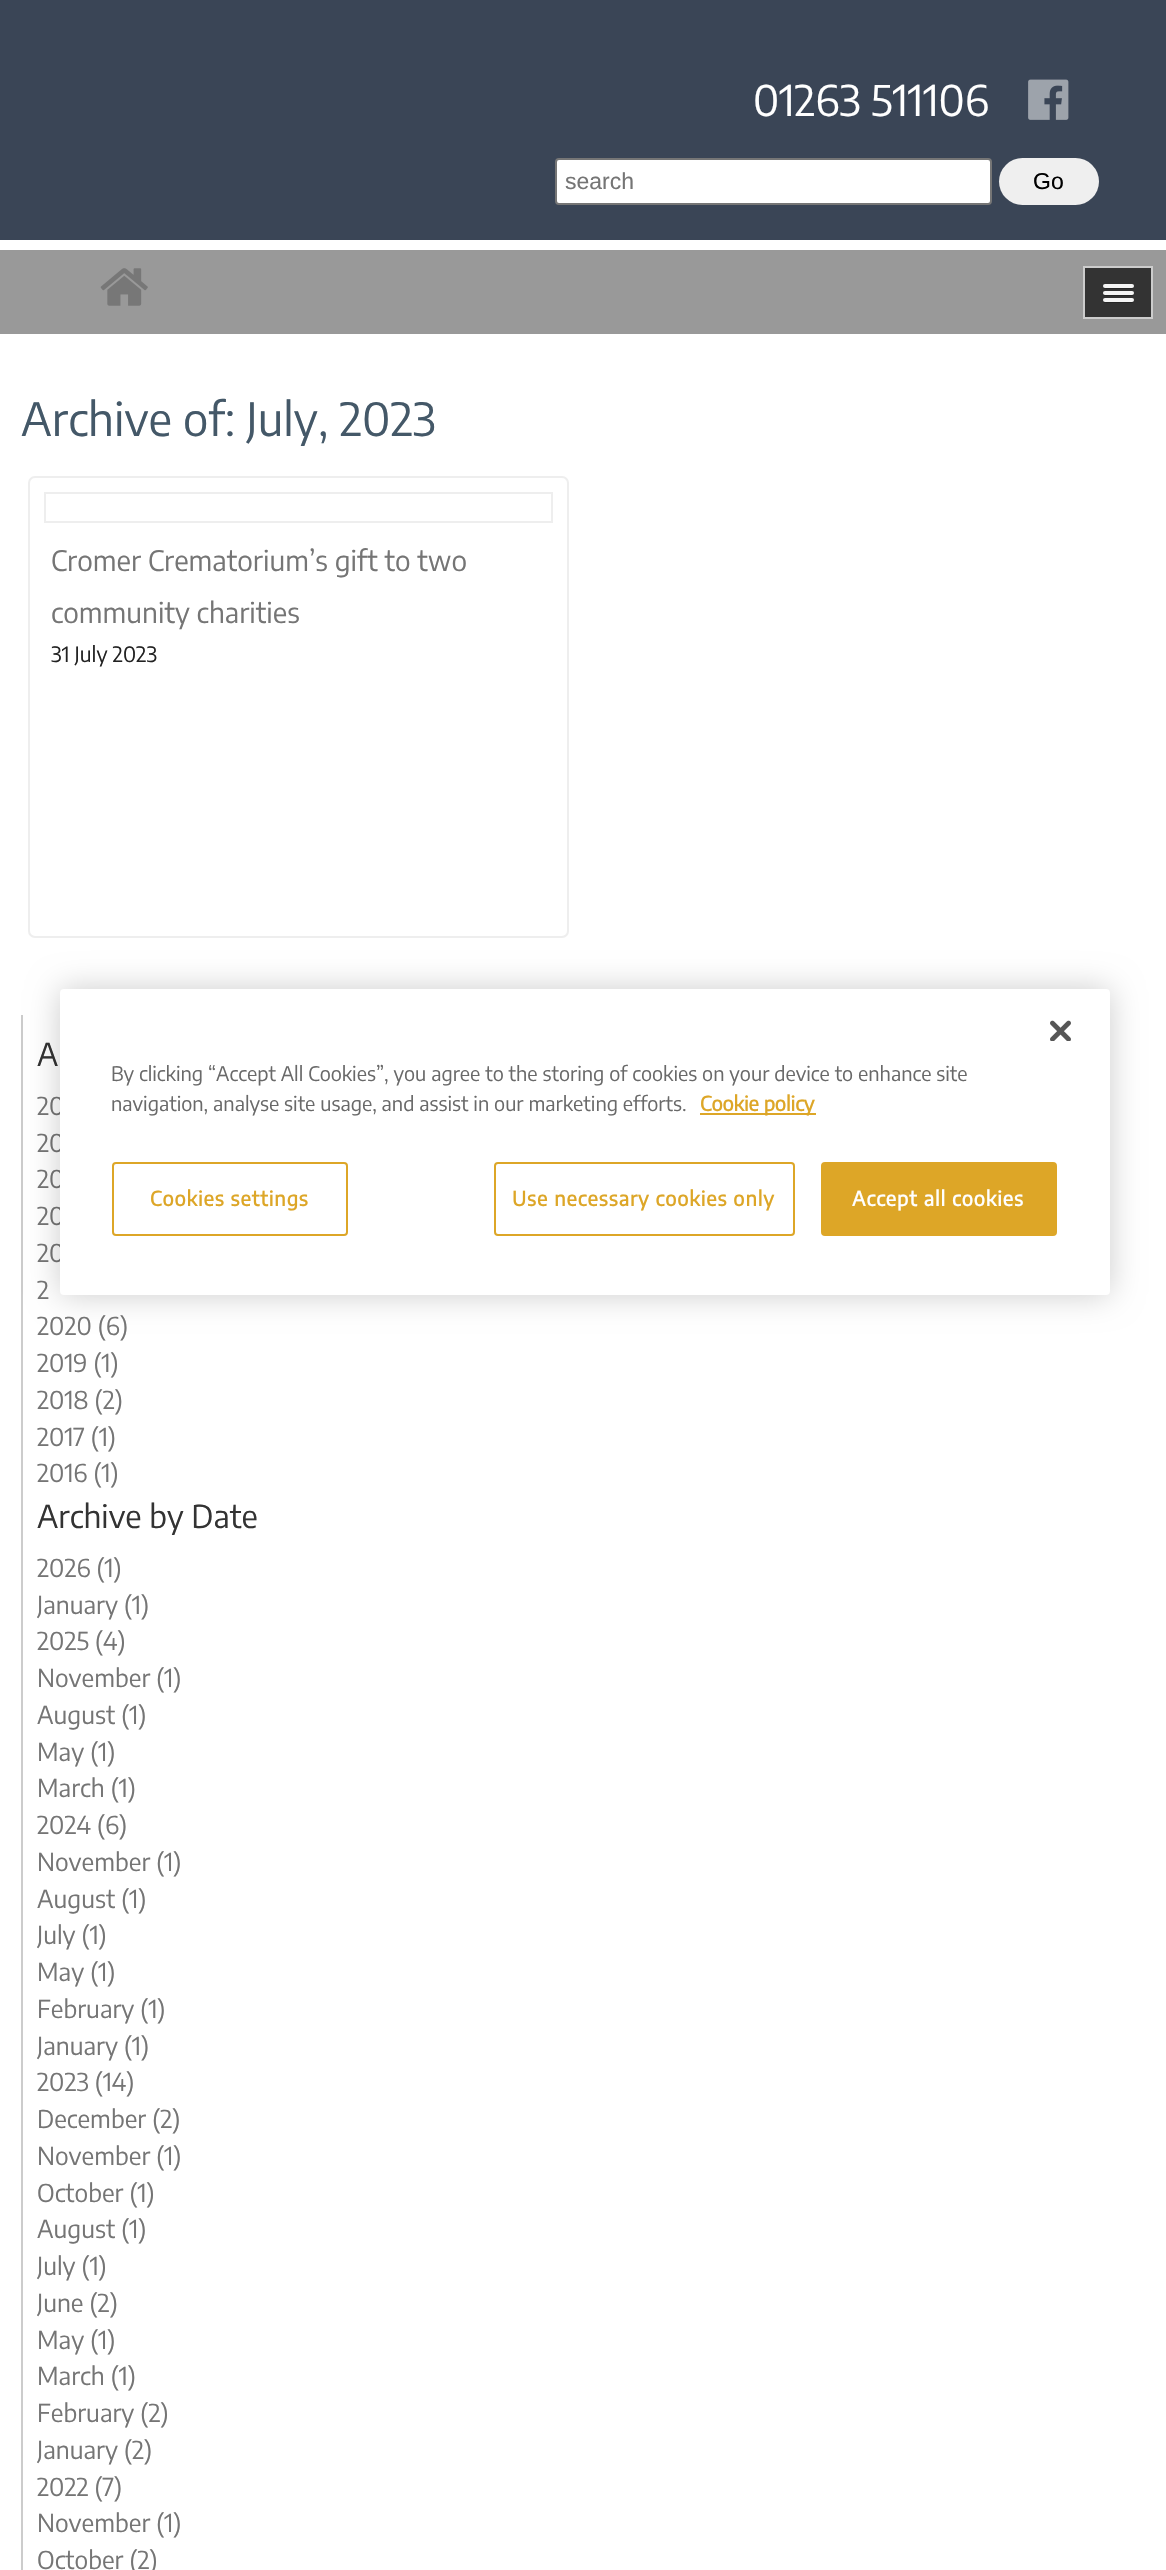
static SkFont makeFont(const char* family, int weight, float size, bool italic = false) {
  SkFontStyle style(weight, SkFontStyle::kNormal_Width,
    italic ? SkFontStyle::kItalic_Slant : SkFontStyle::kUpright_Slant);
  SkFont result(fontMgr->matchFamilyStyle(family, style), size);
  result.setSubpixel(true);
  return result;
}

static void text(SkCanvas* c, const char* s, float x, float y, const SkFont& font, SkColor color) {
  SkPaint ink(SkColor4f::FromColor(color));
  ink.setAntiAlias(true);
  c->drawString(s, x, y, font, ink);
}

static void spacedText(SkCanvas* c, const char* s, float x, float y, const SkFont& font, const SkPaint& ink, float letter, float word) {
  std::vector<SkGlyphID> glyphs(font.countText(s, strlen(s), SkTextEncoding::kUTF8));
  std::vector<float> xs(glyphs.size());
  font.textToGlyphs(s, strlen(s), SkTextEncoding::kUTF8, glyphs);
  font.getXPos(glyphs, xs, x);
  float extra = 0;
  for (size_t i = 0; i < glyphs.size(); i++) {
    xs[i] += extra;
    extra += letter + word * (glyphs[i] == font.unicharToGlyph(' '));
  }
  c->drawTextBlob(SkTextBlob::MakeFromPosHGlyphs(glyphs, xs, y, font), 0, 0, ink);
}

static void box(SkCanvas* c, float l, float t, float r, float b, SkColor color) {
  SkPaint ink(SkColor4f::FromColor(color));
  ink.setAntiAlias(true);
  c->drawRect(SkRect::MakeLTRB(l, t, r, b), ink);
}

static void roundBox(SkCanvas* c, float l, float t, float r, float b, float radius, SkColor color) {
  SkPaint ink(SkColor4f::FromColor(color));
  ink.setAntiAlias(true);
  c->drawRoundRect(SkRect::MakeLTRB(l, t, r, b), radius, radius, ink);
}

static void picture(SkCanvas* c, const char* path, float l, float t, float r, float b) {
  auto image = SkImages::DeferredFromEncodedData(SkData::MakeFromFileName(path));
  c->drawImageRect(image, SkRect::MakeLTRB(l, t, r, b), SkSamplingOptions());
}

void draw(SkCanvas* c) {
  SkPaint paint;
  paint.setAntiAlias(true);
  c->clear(0xffffffff);
  box(c, 0, 0, 1166, 240, 0xff3a4556);
  SkFont face1 = makeFont("Encode Sans Condensed", 100, 42);
  text(c, "01263 511106", 753, 116, face1, 0xffffffff);
  picture(c, "img_01.png", 1028, 79, 1069, 120);
  paint.setColor(0xffffffff);
  c->drawRoundRect(SkRect::MakeLTRB(556, 159, 991, 204), 3, 3, paint);
  paint.setStyle(SkPaint::kStroke_Style);
  paint.setStrokeWidth(2);
  paint.setColor(0xff767676);
  c->drawRoundRect(SkRect::MakeLTRB(556, 159, 991, 204), 3, 3, paint);
  SkFont face2 = makeFont("Liberation Sans", 400, 23);
  text(c, "search", 565, 189, face2, 0xff757575);
  roundBox(c, 999, 158, 1099, 205, 23.5f, 0xffefefef);
  text(c, "Go", 1033, 189, face2, 0xff000000);
  box(c, 0, 250, 1166, 334, 0xff999999);
  picture(c, "img_02.png", 100, 268, 148, 306);
  paint.setStyle(SkPaint::kFill_Style);
  paint.setColor(0xff333333);
  c->drawRect(SkRect::MakeLTRB(1084, 267, 1152, 318), paint);
  paint.setStyle(SkPaint::kStroke_Style);
  paint.setColor(0xffcccccc);
  c->drawRect(SkRect::MakeLTRB(1084, 267, 1152, 318), paint);
  paint.setStyle(SkPaint::kFill_Style);
  paint.setColor(0xff262626);
  c->drawPath(SkPathBuilder().moveTo(1103, 286.5f).cubicTo(1102, 290, 1108.5f, 289, 1109.5f, 289).lineTo(1127.5f, 289).cubicTo(1128.5f, 289, 1135.5f, 290, 1134, 286).lineTo(1132.5f, 287).lineTo(1104, 287).close().detach(), paint);
  roundBox(c, 1103, 284, 1134, 288, 2, 0xfff5f5f5);
  c->drawPath(SkPathBuilder().moveTo(1103, 293.5f).cubicTo(1102, 297, 1108.5f, 296, 1109.5f, 296).lineTo(1127.5f, 296).cubicTo(1128.5f, 296, 1135.5f, 297, 1134, 293).lineTo(1132.5f, 294).lineTo(1104, 294).close().detach(), paint);
  roundBox(c, 1103, 291, 1134, 295, 2, 0xfff5f5f5);
  c->drawPath(SkPathBuilder().moveTo(1103, 300.5f).cubicTo(1102, 304, 1108.5f, 303, 1109.5f, 303).lineTo(1127.5f, 303).cubicTo(1128.5f, 303, 1135.5f, 304, 1134, 300).lineTo(1132.5f, 301).lineTo(1104, 301).close().detach(), paint);
  roundBox(c, 1103, 298, 1134, 302, 2, 0xfff5f5f5);
  SkFont face3 = makeFont("Encode Sans Condensed", 100, 45.5f);
  text(c, "Archive of: July, 2023", 21, 436, face3, 0xff445868);
  paint.setStyle(SkPaint::kStroke_Style);
  paint.setColor(0xffeeeeee);
  c->drawRoundRect(SkRect::MakeLTRB(29, 477, 568, 937), 6, 6, paint);
  c->drawRect(SkRect::MakeLTRB(45, 493, 552, 522), paint);
  SkFont face4 = makeFont("Encode Sans Condensed", 100, 28);
  text(c, "Cromer Crematorium’s gift to two", 51, 571, face4, 0xff757575);
  text(c, "community charities", 51, 623, face4, 0xff757575);
  SkFont face5 = makeFont("Encode Sans Condensed", 100, 21);
  text(c, "31 July 2023", 51, 662, face5, 0xff222222);
  box(c, 21, 1015, 23, 2570, 0xffcccccc);
  SkFont face6 = makeFont("Encode Sans Condensed", 100, 31.5f);
  text(c, "A", 37, 1066, face6, 0xff333333);
  SkFont face7 = makeFont("Encode Sans Condensed", 100, 24.5f);
  text(c, "20", 37, 1115, face7, 0xff757575);
  text(c, "20", 37, 1152, face7, 0xff757575);
  text(c, "20", 37, 1188, face7, 0xff757575);
  text(c, "20", 37, 1225, face7, 0xff757575);
  text(c, "20", 37, 1262, face7, 0xff757575);
  text(c, "2", 37, 1299, face7, 0xff757575);
  text(c, "2020 (6)", 37, 1335, face7, 0xff757575);
  text(c, "2019 (1)", 37, 1372, face7, 0xff757575);
  text(c, "2018 (2)", 37, 1409, face7, 0xff757575);
  text(c, "2017 (1)", 37, 1446, face7, 0xff757575);
  text(c, "2016 (1)", 37, 1482, face7, 0xff757575);
  text(c, "Archive by Date", 37, 1528, face6, 0xff333333);
  text(c, "2026 (1)", 37, 1577, face7, 0xff757575);
  text(c, "January (1)", 37, 1614, face7, 0xff757575);
  text(c, "2025 (4)", 37, 1650, face7, 0xff757575);
  text(c, "November (1)", 37, 1687, face7, 0xff757575);
  text(c, "August (1)", 37, 1724, face7, 0xff757575);
  text(c, "May (1)", 37, 1761, face7, 0xff757575);
  text(c, "March (1)", 37, 1797, face7, 0xff757575);
  text(c, "2024 (6)", 37, 1834, face7, 0xff757575);
  text(c, "November (1)", 37, 1871, face7, 0xff757575);
  text(c, "August (1)", 37, 1908, face7, 0xff757575);
  text(c, "July (1)", 37, 1944, face7, 0xff757575);
  text(c, "May (1)", 37, 1981, face7, 0xff757575);
  text(c, "February (1)", 37, 2018, face7, 0xff757575);
  text(c, "January (1)", 37, 2055, face7, 0xff757575);
  text(c, "2023 (14)", 37, 2091, face7, 0xff757575);
  text(c, "December (2)", 37, 2128, face7, 0xff757575);
  text(c, "November (1)", 37, 2165, face7, 0xff757575);
  text(c, "October (1)", 37, 2202, face7, 0xff757575);
  text(c, "August (1)", 37, 2238, face7, 0xff757575);
  text(c, "July (1)", 37, 2275, face7, 0xff757575);
  text(c, "June (2)", 37, 2312, face7, 0xff757575);
  text(c, "May (1)", 37, 2349, face7, 0xff757575);
  text(c, "March (1)", 37, 2385, face7, 0xff757575);
  text(c, "February (2)", 37, 2422, face7, 0xff757575);
  text(c, "January (2)", 37, 2459, face7, 0xff757575);
  text(c, "2022 (7)", 37, 2496, face7, 0xff757575);
  text(c, "November (1)", 37, 2532, face7, 0xff757575);
  text(c, "October (2)", 37, 2569, face7, 0xff757575);
  paint.setStyle(SkPaint::kFill_Style);
  paint.setColor(0x33000000);
  paint.setMaskFilter(SkMaskFilter::MakeBlur(kNormal_SkBlurStyle, 16));
  c->drawRoundRect(SkRect::MakeLTRB(60, 989, 1110, 1295), 4, 4, paint);
  paint.setMaskFilter(nullptr);
  roundBox(c, 60, 989, 1110, 1295, 4, 0xffffffff);
  picture(c, "img_03.png", 1050, 1020, 1071, 1041);
  SkFont face8 = makeFont("Encode Sans Condensed", 100, 19.9f);
  text(c, "By clicking “Accept All Cookies”, you agree to the storing of cookies on your device to enhance site", 111, 1081, face8, 0xff696969);
  text(c, "navigation, analyse site usage, and assist in our marketing efforts.", 111, 1111, face8, 0xff696969);
  box(c, 700, 1113, 816, 1115, 0xffdda627);
  SkFont face9 = makeFont("Encode Sans Condensed", 700, 19.9f);
  text(c, "Cookie policy", 700, 1111, face9, 0xffdda627);
  paint.setStyle(SkPaint::kStroke_Style);
  paint.setColor(0xffdda627);
  c->drawRoundRect(SkRect::MakeLTRB(113, 1163, 347, 1235), 3, 3, paint);
  paint.setStyle(SkPaint::kFill_Style);
  spacedText(c, "Cookies settings", 150, 1206, face9, paint, 1, 0);
  paint.setStyle(SkPaint::kStroke_Style);
  c->drawRoundRect(SkRect::MakeLTRB(495, 1163, 794, 1235), 3, 3, paint);
  paint.setStyle(SkPaint::kFill_Style);
  spacedText(c, "Use necessary cookies only", 512, 1206, face9, paint, 1, 0);
  c->drawRoundRect(SkRect::MakeLTRB(822, 1163, 1056, 1235), 3, 3, paint);
  paint.setStyle(SkPaint::kStroke_Style);
  c->drawRoundRect(SkRect::MakeLTRB(822, 1163, 1056, 1235), 3, 3, paint);
  paint.setStyle(SkPaint::kFill_Style);
  paint.setColor(0xffffffff);
  spacedText(c, "Accept all cookies", 852, 1206, face9, paint, 1, 0);
}
